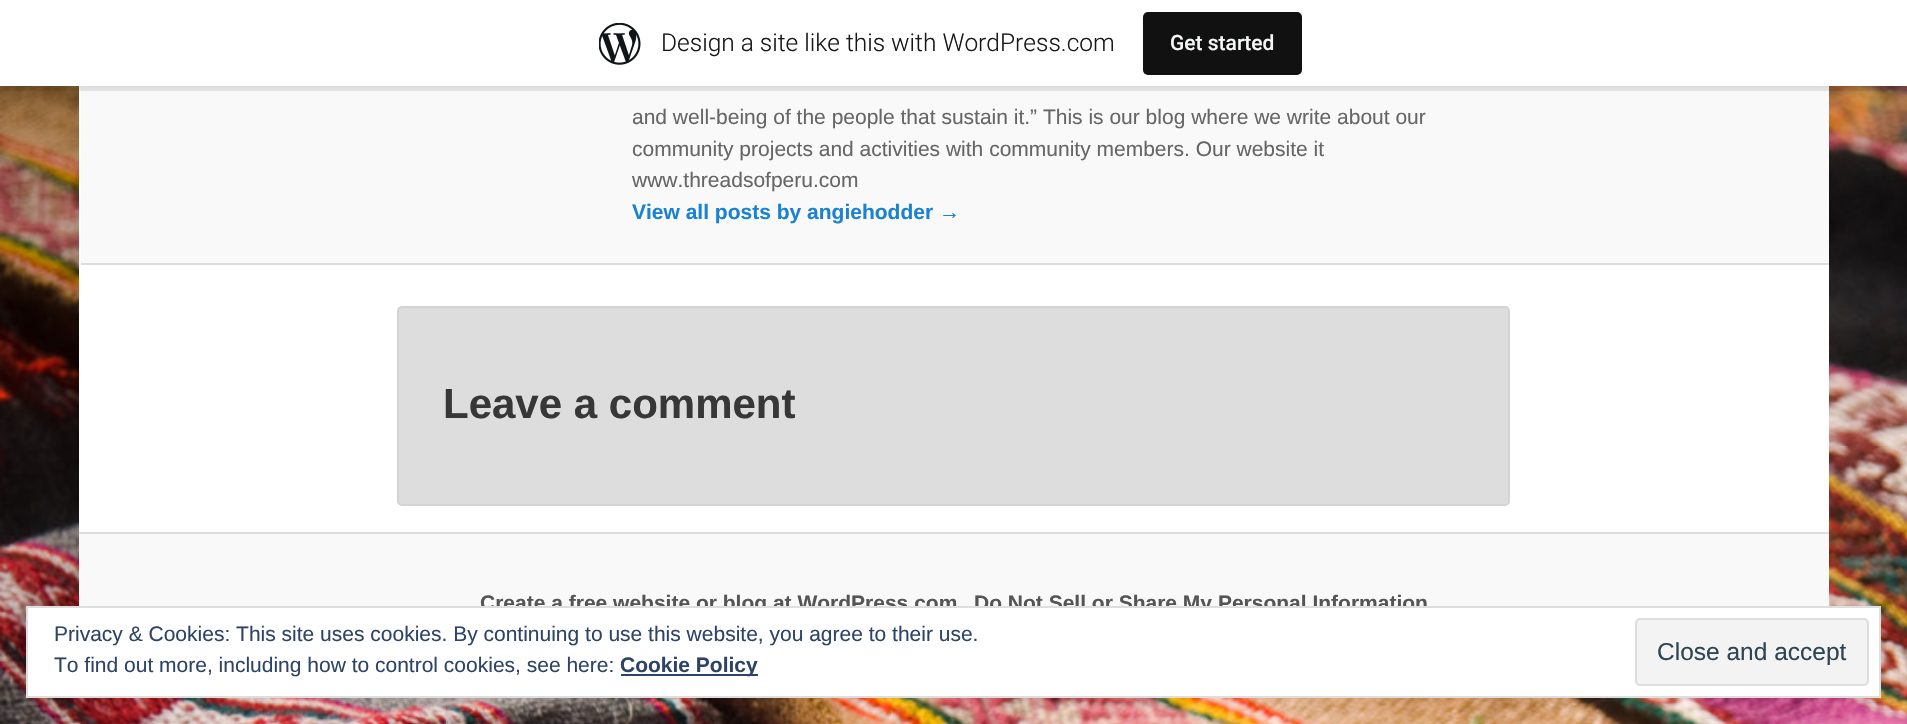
static SkFont makeFont(const char* family, int weight, float size, bool italic = false) {
  SkFontStyle style(weight, SkFontStyle::kNormal_Width,
    italic ? SkFontStyle::kItalic_Slant : SkFontStyle::kUpright_Slant);
  SkFont result(fontMgr->matchFamilyStyle(family, style), size);
  result.setSubpixel(true);
  return result;
}

static void text(SkCanvas* c, const char* s, float x, float y, const SkFont& font, SkColor color) {
  SkPaint ink(SkColor4f::FromColor(color));
  ink.setAntiAlias(true);
  c->drawString(s, x, y, font, ink);
}

static void box(SkCanvas* c, float l, float t, float r, float b, SkColor color) {
  SkPaint ink(SkColor4f::FromColor(color));
  ink.setAntiAlias(true);
  c->drawRect(SkRect::MakeLTRB(l, t, r, b), ink);
}

static void roundBox(SkCanvas* c, float l, float t, float r, float b, float radius, SkColor color) {
  SkPaint ink(SkColor4f::FromColor(color));
  ink.setAntiAlias(true);
  c->drawRoundRect(SkRect::MakeLTRB(l, t, r, b), radius, radius, ink);
}

static void picture(SkCanvas* c, const char* path, float l, float t, float r, float b) {
  auto image = SkImages::DeferredFromEncodedData(SkData::MakeFromFileName(path));
  c->drawImageRect(image, SkRect::MakeLTRB(l, t, r, b), SkSamplingOptions());
}

void draw(SkCanvas* c) {
  SkPaint paint;
  paint.setAntiAlias(true);
  c->clear(0xffffffff);
  picture(c, "img_01.png", 0, 86, 1907, 724);
  box(c, 79, 86, 1829, 532, 0xffffffff);
  box(c, 81, 86, 1829, 263, 0xfff9f9f9);
  paint.setColor(0x0d000000);
  paint.setMaskFilter(SkMaskFilter::MakeBlur(kNormal_SkBlurStyle, 2));
  c->drawRect(SkRect::MakeLTRB(0, 2, 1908, 88), paint);
  paint.setMaskFilter(nullptr);
  paint.setColor(0x14000000);
  c->drawPath(SkPathBuilder().moveTo(2, 86).lineTo(2, 91).lineTo(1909, 91).lineTo(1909, 5).lineTo(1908, 5).lineTo(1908, 86).close().detach(), paint);
  box(c, 0, 0, 1907, 86, 0xffffffff);
  picture(c, "img_02.png", 599, 23, 641, 65);
  SkFont face1 = makeFont("Roboto", 300, 24.5f);
  text(c, "Design a site like this with WordPress.com", 661, 51, face1, 0xff171717);
  roundBox(c, 1143, 12, 1302, 75, 5, 0xff111111);
  SkFont face2 = makeFont("Roboto", 500, 21);
  text(c, "Get started", 1170, 50, face2, 0xfff6f7f7);
  box(c, 81, 263, 1829, 265, 0xffdddddd);
  SkFont face3 = makeFont("Liberation Sans", 400, 21);
  text(c, "and well-being of the people that sustain it.” This is our blog where we write about our", 632, 124, face3, 0xff666666);
  text(c, "community projects and activities with community members. Our website it", 632, 156, face3, 0xff666666);
  text(c, "www.threadsofperu.com", 632, 187, face3, 0xff666666);
  SkFont face4 = makeFont("Liberation Sans", 700, 21);
  text(c, "View all posts by angiehodder →", 632, 219, face4, 0xff1982d1);
  paint.setColor(0xffdddddd);
  c->drawRoundRect(SkRect::MakeLTRB(398, 307, 1509, 505), 4, 4, paint);
  paint.setStyle(SkPaint::kStroke_Style);
  paint.setStrokeWidth(2);
  paint.setColor(0xffd3d3d3);
  c->drawRoundRect(SkRect::MakeLTRB(398, 307, 1509, 505), 4, 4, paint);
  SkFont face5 = makeFont("Liberation Sans", 700, 42);
  text(c, "Leave a comment", 443, 418, face5, 0xff373737);
  box(c, 79, 534, 1829, 606, 0xfff9f9f9);
  box(c, 79, 532, 1829, 534, 0xffdddddd);
  text(c, "Create a free website or blog at WordPress.com", 480, 610, face4, 0xff555555);
  text(c, "Do Not Sell or Share My Personal Information", 974, 610, face4, 0xff555555);
  paint.setStyle(SkPaint::kFill_Style);
  paint.setColor(0xffffffff);
  c->drawRect(SkRect::MakeLTRB(27, 607, 1880, 697), paint);
  paint.setStyle(SkPaint::kStroke_Style);
  paint.setColor(0xffdedede);
  c->drawRect(SkRect::MakeLTRB(27, 607, 1880, 697), paint);
  text(c, "Privacy & Cookies: This site uses cookies. By continuing to use this website, you agree to their use.", 54, 641, face3, 0xff2e4467);
  text(c, "To find out more, including how to control cookies, see here:", 54, 672, face3, 0xff2e4467);
  box(c, 621, 674, 758, 676, 0xff2e4467);
  text(c, "Cookie Policy", 620, 672, face4, 0xff2e4467);
  paint.setStyle(SkPaint::kFill_Style);
  paint.setColor(0xfff3f3f3);
  c->drawRoundRect(SkRect::MakeLTRB(1636, 619, 1868, 685), 4, 4, paint);
  paint.setStyle(SkPaint::kStroke_Style);
  paint.setColor(0xffdedede);
  c->drawRoundRect(SkRect::MakeLTRB(1636, 619, 1868, 685), 4, 4, paint);
  SkFont face6 = makeFont("Liberation Sans", 400, 24.5f);
  text(c, "Close and accept", 1657, 660, face6, 0xff2e4453);
}
